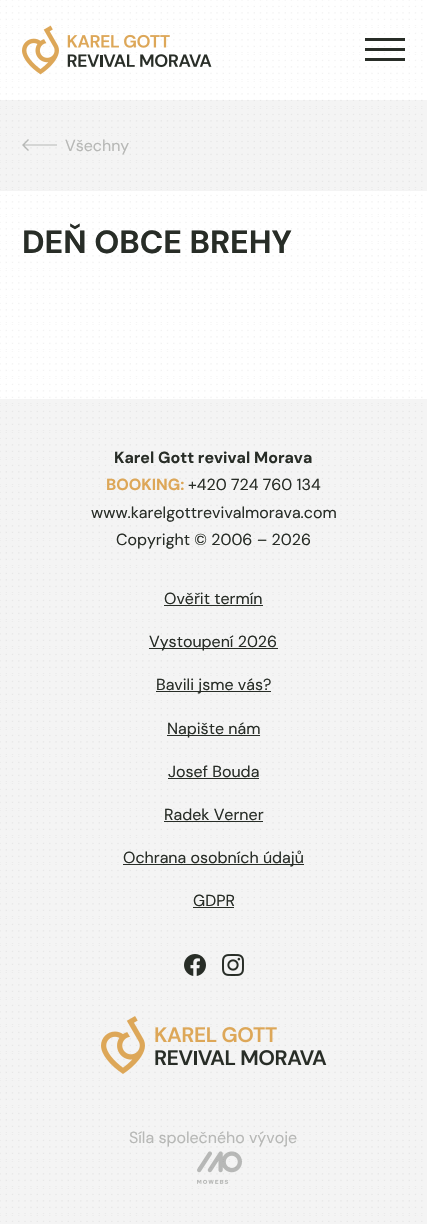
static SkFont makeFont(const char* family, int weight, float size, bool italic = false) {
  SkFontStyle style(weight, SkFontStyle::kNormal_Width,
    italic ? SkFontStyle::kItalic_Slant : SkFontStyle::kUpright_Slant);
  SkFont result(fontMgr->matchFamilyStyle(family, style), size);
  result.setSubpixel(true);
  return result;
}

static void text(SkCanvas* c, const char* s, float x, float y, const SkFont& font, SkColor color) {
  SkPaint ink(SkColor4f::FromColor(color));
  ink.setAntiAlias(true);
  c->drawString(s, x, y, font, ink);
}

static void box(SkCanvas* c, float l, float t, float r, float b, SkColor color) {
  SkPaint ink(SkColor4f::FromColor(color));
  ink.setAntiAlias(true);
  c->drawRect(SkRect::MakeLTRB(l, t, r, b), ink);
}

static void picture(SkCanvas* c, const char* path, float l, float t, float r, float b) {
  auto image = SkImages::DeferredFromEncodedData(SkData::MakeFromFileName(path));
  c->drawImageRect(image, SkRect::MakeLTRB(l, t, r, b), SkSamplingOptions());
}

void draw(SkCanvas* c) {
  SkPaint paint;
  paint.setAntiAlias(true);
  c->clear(0xffffffff);
  picture(c, "img_01.png", 0, 0, 423, 1222);
  picture(c, "img_02.png", 22, 25, 212, 75);
  box(c, 365, 48, 405, 51, 0xff282d27);
  box(c, 365, 38, 405, 41, 0xff282d27);
  box(c, 365, 58, 405, 61, 0xff282d27);
  box(c, 0, 100, 427, 191, 0x0d282d27);
  SkFont face1 = makeFont("DM Sans", 400, 16);
  text(c, "Všechny", 65, 151, face1, 0xffb7b8b6);
  paint.setColor(0x4d282d27);
  c->drawPath(SkPathBuilder().moveTo(28, 139).lineTo(29, 140).lineTo(24.5f, 144.5f).lineTo(57, 144.5f).lineTo(57, 145.5f).lineTo(24.5f, 145.5f).lineTo(29, 150).lineTo(28, 151).lineTo(22, 145).close().detach(), paint);
  SkFont face2 = makeFont("DM Sans", 700, 32);
  text(c, "DEŇ OBCE BREHY", 22, 253, face2, 0xff282d27);
  box(c, 0, 399, 427, 1224, 0x0d282d27);
  SkFont face3 = makeFont("DM Sans", 700, 16);
  text(c, "Karel Gott revival Morava", 114, 463, face3, 0xff282d27);
  text(c, "BOOKING:", 106, 490, face3, 0xffdda758);
  text(c, "+420 724 760 134", 188, 490, face1, 0xff282d27);
  text(c, "www.karelgottrevivalmorava.com", 91, 518, face1, 0xff282d27);
  text(c, "Copyright © 2006 – 2026", 116, 545, face1, 0xff282d27);
  text(c, "Ověřit termín", 164, 604, face1, 0xff282d27);
  box(c, 164, 605, 263, 606, 0xff282d27);
  box(c, 149, 648, 278, 649, 0xff282d27);
  text(c, "Vystoupení 2026", 149, 647, face1, 0xff282d27);
  box(c, 156, 691, 271, 692, 0xff282d27);
  text(c, "Bavili jsme vás?", 156, 690, face1, 0xff282d27);
  box(c, 167, 735, 260, 736, 0xff282d27);
  text(c, "Napište nám", 167, 734, face1, 0xff282d27);
  text(c, "Josef Bouda", 168, 777, face1, 0xff282d27);
  box(c, 168, 778, 259, 779, 0xff282d27);
  text(c, "Radek Verner", 164, 820, face1, 0xff282d27);
  box(c, 164, 821, 263, 822, 0xff282d27);
  box(c, 123, 864, 304, 865, 0xff282d27);
  text(c, "Ochrana osobních údajů", 123, 863, face1, 0xff282d27);
  text(c, "GDPR", 193, 906, face1, 0xff282d27);
  box(c, 193, 907, 234, 908, 0xff282d27);
  picture(c, "img_03.png", 184, 954, 206, 976);
  picture(c, "img_04.png", 222, 954, 244, 976);
  picture(c, "img_05.png", 101, 1016, 327, 1074);
  text(c, "Síla společného vývoje", 129, 1143, face1, 0xffb7b8b6);
  picture(c, "img_06.png", 197, 1151, 242, 1184);
}
